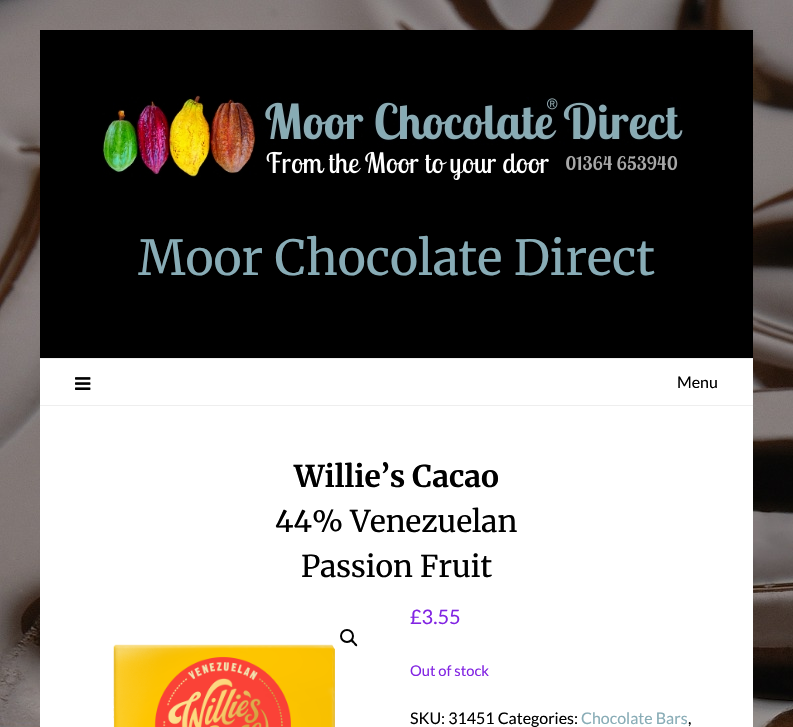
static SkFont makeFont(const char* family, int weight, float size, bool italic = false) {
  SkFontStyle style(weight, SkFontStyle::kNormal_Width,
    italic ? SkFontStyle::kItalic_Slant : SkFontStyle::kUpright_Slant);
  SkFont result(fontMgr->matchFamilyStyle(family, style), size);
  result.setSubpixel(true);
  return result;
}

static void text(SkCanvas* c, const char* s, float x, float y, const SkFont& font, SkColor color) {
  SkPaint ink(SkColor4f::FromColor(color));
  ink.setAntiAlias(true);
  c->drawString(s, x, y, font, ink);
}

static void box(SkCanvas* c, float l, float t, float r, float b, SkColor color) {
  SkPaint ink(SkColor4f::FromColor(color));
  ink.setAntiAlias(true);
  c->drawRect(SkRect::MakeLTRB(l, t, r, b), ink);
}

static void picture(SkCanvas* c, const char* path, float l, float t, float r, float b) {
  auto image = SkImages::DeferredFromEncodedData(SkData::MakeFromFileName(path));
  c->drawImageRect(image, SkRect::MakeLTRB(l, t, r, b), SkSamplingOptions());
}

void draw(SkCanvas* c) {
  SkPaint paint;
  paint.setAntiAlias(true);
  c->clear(0xffffffff);
  picture(c, "img_01.png", 0, 0, 793, 727);
  box(c, 40, 30, 753, 358, 0xff000000);
  picture(c, "img_02.png", 102, 95, 683, 180);
  SkFont face1 = makeFont("Merriweather", 400, 48);
  text(c, "Moor Chocolate Direct", 138, 275, face1, 0xff88acb6);
  box(c, 40, 359, 753, 405, 0xffffffff);
  box(c, 40, 358, 753, 359, 0xffeeeeee);
  box(c, 40, 405, 753, 406, 0xffeeeeee);
  picture(c, "img_03.png", 75, 377, 91, 390);
  SkFont face2 = makeFont("Lato", 400, 16);
  text(c, "Menu", 677, 388, face2, 0xff000000);
  box(c, 40, 406, 753, 727, 0xffffffff);
  SkFont face3 = makeFont("Merriweather", 700, 30);
  text(c, "Willie’s Cacao", 294, 487, face3, 0xff000000);
  SkFont face4 = makeFont("Merriweather", 400, 30);
  text(c, "44% Venezuelan", 275, 532, face4, 0xff000000);
  text(c, "Passion Fruit", 301, 577, face4, 0xff000000);
  picture(c, "img_04.png", 113, 644, 335, 727);
  paint.setColor(0xffffffff);
  c->drawCircle(349, 638, 18, paint);
  paint.setStyle(SkPaint::kStroke_Style);
  paint.setStrokeWidth(2);
  paint.setColor(0xff000000);
  c->drawCircle(347, 636, 6, paint);
  paint.setStyle(SkPaint::kFill_Style);
  c->drawPath(SkPathBuilder().moveTo(351.5f, 640).cubicTo(352.5f, 639, 354.5f, 641.5f, 355, 642.5f).cubicTo(355.5f, 643, 358, 644.5f, 357, 646).cubicTo(356, 647, 354, 644.5f, 353.5f, 643.5f).cubicTo(353, 643, 350, 641.5f, 351.5f, 640).close().detach(), paint);
  SkFont face5 = makeFont("Lato", 400, 20);
  text(c, "£3.55", 410, 624, face5, 0xff8224e3);
  SkFont face6 = makeFont("Lato", 400, 14.75f);
  text(c, "Out of stock", 410, 676, face6, 0xff8224e3);
  text(c, "SKU: 31451 Categories:", 410, 724, face2, 0xff000000);
  text(c, "Chocolate Bars", 581, 724, face2, 0xff88acb6);
  text(c, ",", 688, 724, face2, 0xff000000);
}
